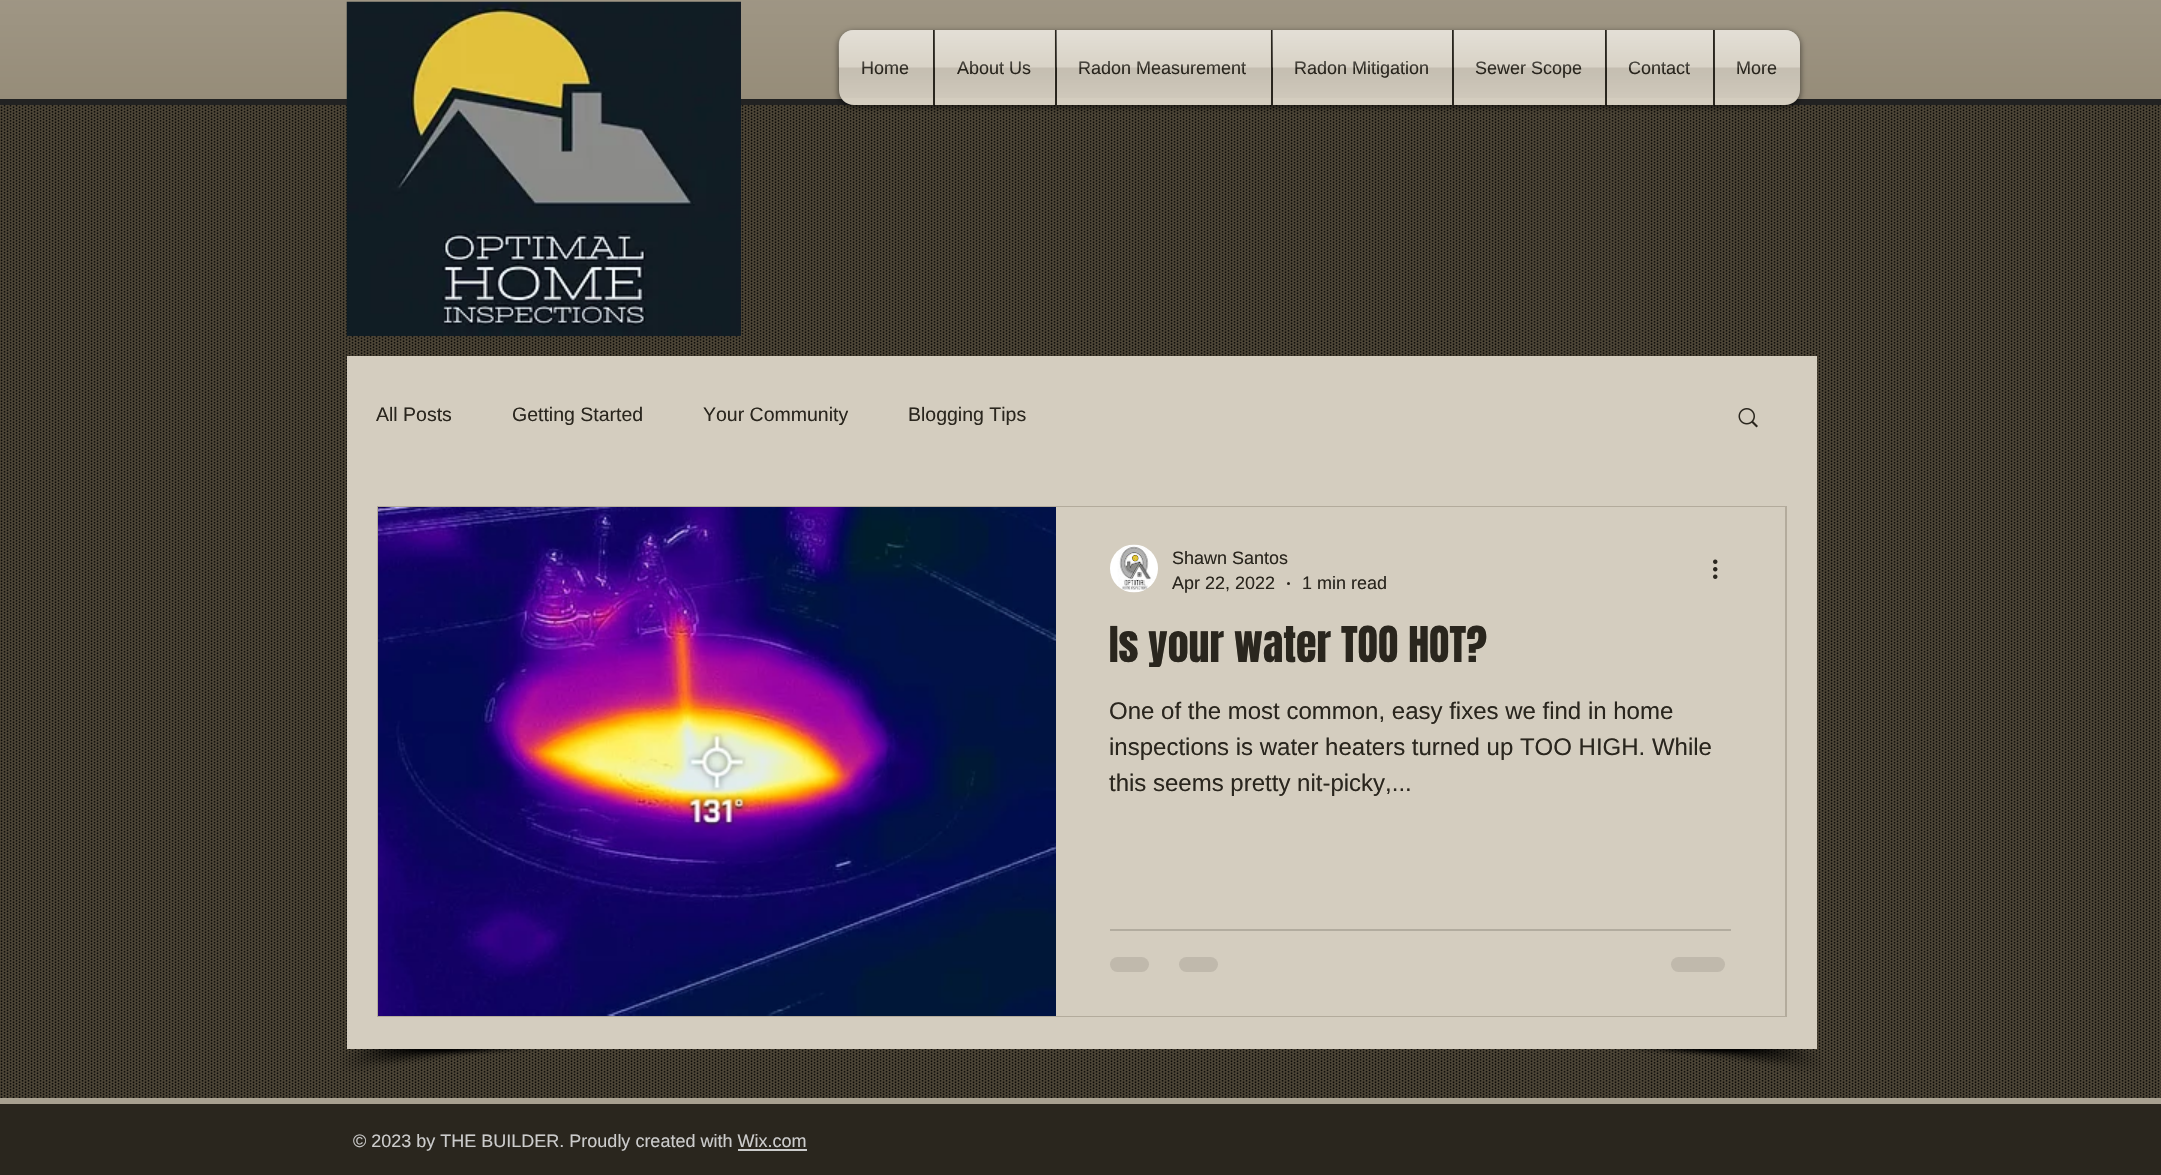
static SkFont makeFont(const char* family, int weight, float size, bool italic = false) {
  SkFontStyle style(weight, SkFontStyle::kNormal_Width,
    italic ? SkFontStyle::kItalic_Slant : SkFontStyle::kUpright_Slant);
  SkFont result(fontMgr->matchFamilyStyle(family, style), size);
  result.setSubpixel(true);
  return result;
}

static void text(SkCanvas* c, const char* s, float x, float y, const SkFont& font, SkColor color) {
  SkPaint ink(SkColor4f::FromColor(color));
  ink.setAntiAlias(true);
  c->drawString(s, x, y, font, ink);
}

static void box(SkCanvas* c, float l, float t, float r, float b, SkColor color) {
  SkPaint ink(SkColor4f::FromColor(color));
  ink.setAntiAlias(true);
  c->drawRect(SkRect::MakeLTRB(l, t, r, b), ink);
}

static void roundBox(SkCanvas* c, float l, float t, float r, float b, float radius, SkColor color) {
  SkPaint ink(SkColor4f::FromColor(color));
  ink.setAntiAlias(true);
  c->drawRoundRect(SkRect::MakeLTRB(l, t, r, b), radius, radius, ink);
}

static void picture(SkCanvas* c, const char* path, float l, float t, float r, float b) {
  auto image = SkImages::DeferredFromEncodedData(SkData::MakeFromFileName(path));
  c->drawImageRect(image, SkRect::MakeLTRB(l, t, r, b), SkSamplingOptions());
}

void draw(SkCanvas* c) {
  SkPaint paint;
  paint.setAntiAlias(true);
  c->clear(0xff534b3b);
  box(c, 0, 0, 2161, 99, 0xff7d7159);
  box(c, 0, 99, 2161, 105, 0xff222222);
  picture(c, "img_01.png", 0, 0, 2161, 99);
  picture(c, "img_17.png", 0, 105, 2161, 1098);
  picture(c, "img_02.png", 346, 1, 741, 336);
  paint.setColor(0x99000000);
  paint.setMaskFilter(SkMaskFilter::MakeBlur(kNormal_SkBlurStyle, 3));
  c->drawRoundRect(SkRect::MakeLTRB(839, 32, 1800, 107), 15, 15, paint);
  paint.setMaskFilter(nullptr);
  picture(c, "img_03.png", 838, 30, 1800, 98);
  paint.setColor(0xffd4cdbf);
  c->drawPath(SkPathBuilder().moveTo(854, 30).lineTo(933, 30).lineTo(933, 105).lineTo(854, 105).cubicTo(845.5f, 105, 839, 98.5f, 839, 90).lineTo(839, 45).cubicTo(839, 36.5f, 845.5f, 30, 854, 30).close().detach(), paint);
  SkFont face1 = makeFont("Liberation Sans", 400, 18);
  text(c, "Home", 861, 74, face1, 0xff2a261e);
  picture(c, "img_04.png", 838, 30, 933, 98);
  box(c, 935, 30, 1055, 105, 0xffd4cdbf);
  box(c, 933, 30, 935, 105, 0xff2a261e);
  text(c, "About Us", 957, 74, face1, 0xff2a261e);
  picture(c, "img_05.png", 934, 30, 1055, 98);
  box(c, 1057, 30, 1271, 105, 0xffd4cdbf);
  box(c, 1055, 30, 1057, 105, 0xff2a261e);
  text(c, "Radon Measurement", 1078, 74, face1, 0xff2a261e);
  picture(c, "img_06.png", 1056, 30, 1271, 98);
  box(c, 1273, 30, 1452, 105, 0xffd4cdbf);
  box(c, 1271, 30, 1273, 105, 0xff2a261e);
  text(c, "Radon Mitigation", 1294, 74, face1, 0xff2a261e);
  picture(c, "img_07.png", 1272, 30, 1452, 98);
  box(c, 1454, 30, 1605, 105, 0xffd4cdbf);
  box(c, 1452, 30, 1454, 105, 0xff2a261e);
  text(c, "Sewer Scope", 1475, 74, face1, 0xff2a261e);
  picture(c, "img_08.png", 1453, 30, 1605, 98);
  box(c, 1607, 30, 1713, 105, 0xffd4cdbf);
  box(c, 1605, 30, 1607, 105, 0xff2a261e);
  text(c, "Contact", 1628, 74, face1, 0xff2a261e);
  picture(c, "img_09.png", 1606, 30, 1713, 98);
  c->drawPath(SkPathBuilder().moveTo(1713, 30).lineTo(1785, 30).cubicTo(1793.5f, 30, 1800, 36.5f, 1800, 45).lineTo(1800, 90).cubicTo(1800, 98.5f, 1793.5f, 105, 1785, 105).lineTo(1713, 105).close().detach(), paint);
  box(c, 1713, 30, 1715, 105, 0xff2a261e);
  text(c, "More", 1736, 74, face1, 0xff2a261e);
  picture(c, "img_10.png", 1714, 30, 1800, 98);
  box(c, 347, 356, 1817, 1049, 0xffd4cdbf);
  SkFont face2 = makeFont("Liberation Sans", 400, 19.5f);
  text(c, "All Posts", 376, 421, face2, 0xff2a261e);
  text(c, "Getting Started", 512, 421, face2, 0xff2a261e);
  text(c, "Your Community", 703, 421, face2, 0xff2a261e);
  text(c, "Blogging Tips", 908, 421, face2, 0xff2a261e);
  picture(c, "img_11.png", 1738, 408, 1758, 428);
  paint.setStyle(SkPaint::kStroke_Style);
  paint.setStrokeWidth(2);
  paint.setColor(0xffb3ab9c);
  c->drawRect(SkRect::MakeLTRB(378, 507, 1786, 1016), paint);
  picture(c, "img_12.png", 378, 507, 1056, 1016);
  box(c, 1056, 507, 1785, 1016, 0xffd4cdbf);
  picture(c, "img_13.png", 1110, 544, 1158, 593);
  text(c, "Shawn Santos", 1172, 564, face1, 0xff2a261e);
  text(c, "Apr 22, 2022", 1172, 589, face1, 0xff2a261e);
  paint.setStyle(SkPaint::kFill_Style);
  paint.setColor(0xff2a261e);
  c->drawCircle(1288.5f, 583.5f, 1.5f, paint);
  text(c, "1 min read", 1302, 589, face1, 0xff2a261e);
  picture(c, "img_14.png", 1713, 559, 1718, 579);
  SkFont face3 = makeFont("Anton", 400, 42);
  text(c, "Is your water TOO HOT?", 1109, 662, face3, 0xff2a261e);
  SkFont face4 = makeFont("Liberation Sans", 400, 24);
  text(c, "One of the most common, easy fixes we find in home", 1109, 719, face4, 0xff2a261e);
  text(c, "inspections is water heaters turned up TOO HIGH. While", 1109, 755, face4, 0xff2a261e);
  text(c, "this seems pretty nit-picky,...", 1109, 791, face4, 0xff2a261e);
  box(c, 1110, 929, 1731, 931, 0xffb2ac9f);
  roundBox(c, 1110, 957, 1149, 972, 7.5f, 0xffc0b9ac);
  roundBox(c, 1179, 957, 1218, 972, 7.5f, 0xffc0b9ac);
  roundBox(c, 1671, 957, 1725, 972, 7.5f, 0xffc0b9ac);
  picture(c, "img_15.png", 341, 1049, 548, 1072);
  picture(c, "img_16.png", 1615, 1049, 1822, 1072);
  box(c, 0, 1104, 2161, 1175, 0xff2a261e);
  box(c, 0, 1098, 2161, 1104, 0xffa8a090);
  text(c, "© 2023 by THE BUILDER. Proudly created with Wix.com", 353, 1147, face1, 0xffcccccc);
  box(c, 738, 1149, 807, 1151, 0xffcccccc);
}
